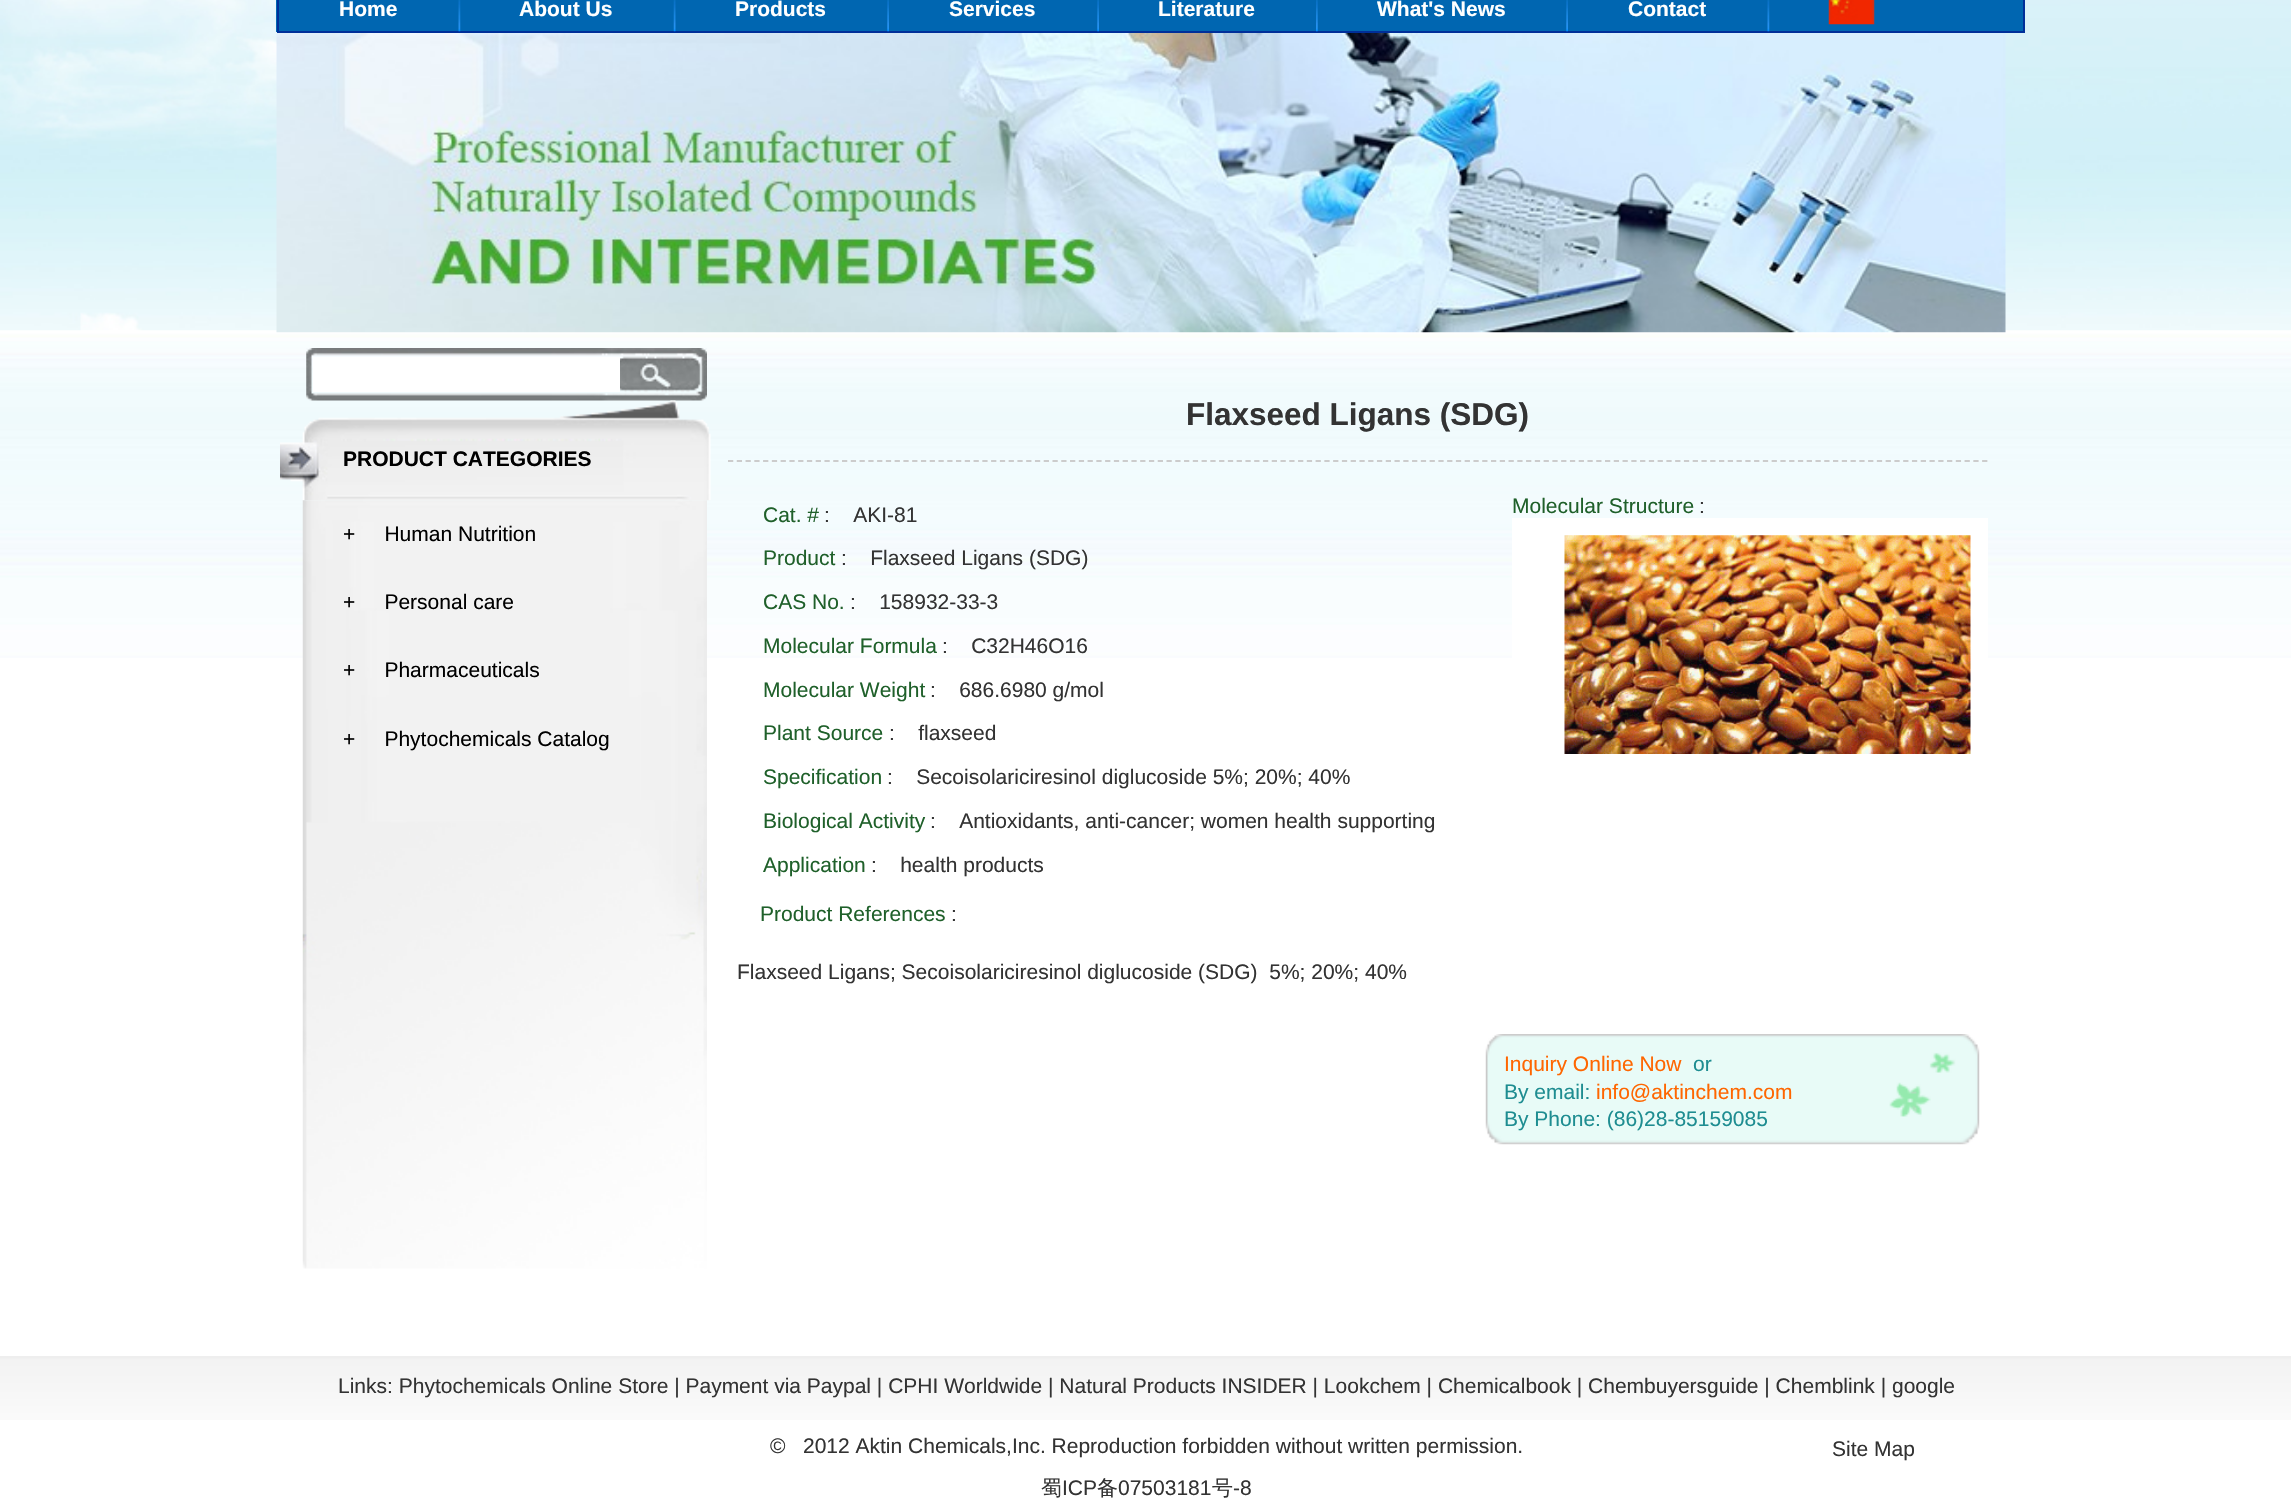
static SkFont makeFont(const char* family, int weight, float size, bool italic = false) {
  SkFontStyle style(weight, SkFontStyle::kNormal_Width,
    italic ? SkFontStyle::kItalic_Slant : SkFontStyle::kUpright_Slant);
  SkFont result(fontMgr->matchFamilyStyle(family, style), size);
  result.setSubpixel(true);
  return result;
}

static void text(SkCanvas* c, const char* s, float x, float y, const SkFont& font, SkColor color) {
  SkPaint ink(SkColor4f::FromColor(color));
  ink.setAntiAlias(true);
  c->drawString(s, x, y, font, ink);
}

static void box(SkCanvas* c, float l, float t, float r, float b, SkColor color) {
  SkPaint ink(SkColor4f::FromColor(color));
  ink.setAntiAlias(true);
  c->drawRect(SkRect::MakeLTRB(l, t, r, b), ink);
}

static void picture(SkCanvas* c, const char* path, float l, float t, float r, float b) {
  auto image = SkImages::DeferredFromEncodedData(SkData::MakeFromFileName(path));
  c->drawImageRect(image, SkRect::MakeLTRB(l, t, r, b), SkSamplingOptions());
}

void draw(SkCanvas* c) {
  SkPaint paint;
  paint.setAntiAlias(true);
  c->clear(0xffffffff);
  picture(c, "img_01.png", 0, 0, 2291, 331);
  box(c, 276, 0, 2023, 32, 0xff0066b1);
  paint.setStyle(SkPaint::kStroke_Style);
  paint.setStrokeWidth(2);
  paint.setColor(0xff002f99);
  c->drawRect(SkRect::MakeLTRB(278, -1, 2024, 32), paint);
  SkFont face1 = makeFont("Liberation Sans", 700, 21);
  text(c, "Home", 339, 16, face1, 0xffffffff);
  picture(c, "img_02.png", 458, 0, 461, 32);
  text(c, "About Us", 519, 16, face1, 0xffffffff);
  picture(c, "img_03.png", 673, 0, 676, 32);
  text(c, "Products", 735, 16, face1, 0xffffffff);
  picture(c, "img_04.png", 887, 0, 889, 32);
  text(c, "Services", 949, 16, face1, 0xffffffff);
  picture(c, "img_04.png", 1097, 0, 1099, 32);
  text(c, "Literature", 1158, 16, face1, 0xffffffff);
  picture(c, "img_05.png", 1316, 0, 1318, 32);
  text(c, "What's News", 1377, 16, face1, 0xffffffff);
  picture(c, "img_04.png", 1566, 0, 1568, 32);
  text(c, "Contact", 1628, 16, face1, 0xffffffff);
  picture(c, "img_02.png", 1767, 0, 1770, 32);
  picture(c, "img_06.png", 1828, 0, 1875, 25);
  picture(c, "img_08.png", 0, 330, 2291, 658);
  picture(c, "img_07.png", 276, 33, 2006, 333);
  picture(c, "img_09.png", 306, 348, 707, 401);
  box(c, 313, 357, 620, 392, 0xffffffff);
  picture(c, "img_10.png", 280, 400, 711, 501);
  text(c, "PRODUCT CATEGORIES", 343, 466, face1, 0xff000000);
  picture(c, "img_11.png", 302, 500, 707, 1269);
  SkFont face2 = makeFont("Liberation Sans", 400, 21);
  text(c, "+     Human Nutrition", 343, 541, face2, 0xff000000);
  text(c, "+     Personal care", 343, 609, face2, 0xff000000);
  text(c, "+     Pharmaceuticals", 343, 677, face2, 0xff000000);
  text(c, "+     Phytochemicals Catalog", 343, 746, face2, 0xff000000);
  paint.setStrokeWidth(1.8f);
  paint.setColor(0xffcccccc);
  paint.setPathEffect(SkDashPathEffect::Make({{5.25f, 3.52f}}, 0));
  c->drawPath(SkPathBuilder().moveTo(728, 461).lineTo(1988, 461).detach(), paint);
  paint.setPathEffect(nullptr);
  SkFont face3 = makeFont("Liberation Sans", 700, 31.5f);
  text(c, "Flaxseed Ligans (SDG)", 1186, 425, face3, 0xff333333);
  text(c, "Cat. #", 763, 522, face2, 0xff1f602a);
  text(c, ":    AKI-81", 824, 522, face2, 0xff333333);
  text(c, "Product", 763, 565, face2, 0xff1f602a);
  text(c, ":    Flaxseed Ligans (SDG)", 841, 565, face2, 0xff333333);
  text(c, "CAS No.", 763, 609, face2, 0xff1f602a);
  text(c, ":    158932-33-3", 850, 609, face2, 0xff333333);
  text(c, "Molecular Formula", 763, 653, face2, 0xff1f602a);
  text(c, ":    C32H46O16", 942, 653, face2, 0xff333333);
  text(c, "Molecular Weight", 763, 697, face2, 0xff1f602a);
  text(c, ":    686.6980 g/mol", 930, 697, face2, 0xff333333);
  text(c, "Plant Source", 763, 740, face2, 0xff1f602a);
  text(c, ":    flaxseed", 889, 740, face2, 0xff333333);
  text(c, "Specification", 763, 784, face2, 0xff1f602a);
  text(c, ":    Secoisolariciresinol diglucoside 5%; 20%; 40%", 887, 784, face2, 0xff333333);
  text(c, "Biological Activity", 763, 828, face2, 0xff1f602a);
  text(c, ":    Antioxidants, anti-cancer; women health supporting", 930, 828, face2, 0xff333333);
  text(c, "Application", 763, 872, face2, 0xff1f602a);
  text(c, ":    health products", 871, 872, face2, 0xff333333);
  text(c, "Molecular Structure", 1512, 513, face2, 0xff1f602a);
  text(c, ":", 1699, 513, face2, 0xff333333);
  box(c, 1512, 518, 1988, 658, 0xffffffff);
  picture(c, "img_12.png", 1564, 535, 1971, 754);
  text(c, "Product References", 760, 921, face2, 0xff1f602a);
  text(c, ":", 951, 921, face2, 0xff333333);
  text(c, "Flaxseed Ligans; Secoisolariciresinol diglucoside (SDG)  5%; 20%; 40%", 737, 979, face2, 0xff333333);
  picture(c, "img_13.png", 1485, 1034, 1980, 1145);
  text(c, "Inquiry Online Now", 1504, 1071, face2, 0xffff6600);
  text(c, "or", 1693, 1071, face2, 0xff1e8d91);
  text(c, "By email:", 1504, 1099, face2, 0xff1e8d91);
  text(c, "info@aktinchem.com", 1596, 1099, face2, 0xffff6600);
  text(c, "By Phone: (86)28-85159085", 1504, 1126, face2, 0xff1e8d91);
  picture(c, "img_14.png", 0, 1356, 2291, 1420);
  text(c, "Links: Phytochemicals Online Store | Payment via Paypal | CPHI Worldwide | Natural Products INSIDER | Lookchem | Chemicalbook | Chembuyersguide | Chemblink | google", 338, 1393, face2, 0xff333333);
  text(c, "©   2012 Aktin Chemicals,Inc. Reproduction forbidden without written permission.", 770, 1453, face2, 0xff333333);
  SkFont face4 = makeFont("WenQuanYi Zen Hei", 500, 21);
  text(c, "蜀", 1041, 1495, face4, 0xff333333);
  text(c, "ICP", 1062, 1495, face2, 0xff333333);
  text(c, "备", 1097, 1495, face4, 0xff333333);
  text(c, "07503181", 1118, 1495, face2, 0xff333333);
  text(c, "号", 1212, 1495, face4, 0xff333333);
  text(c, "-8", 1233, 1495, face2, 0xff333333);
  text(c, "Site Map", 1832, 1456, face2, 0xff333333);
}
